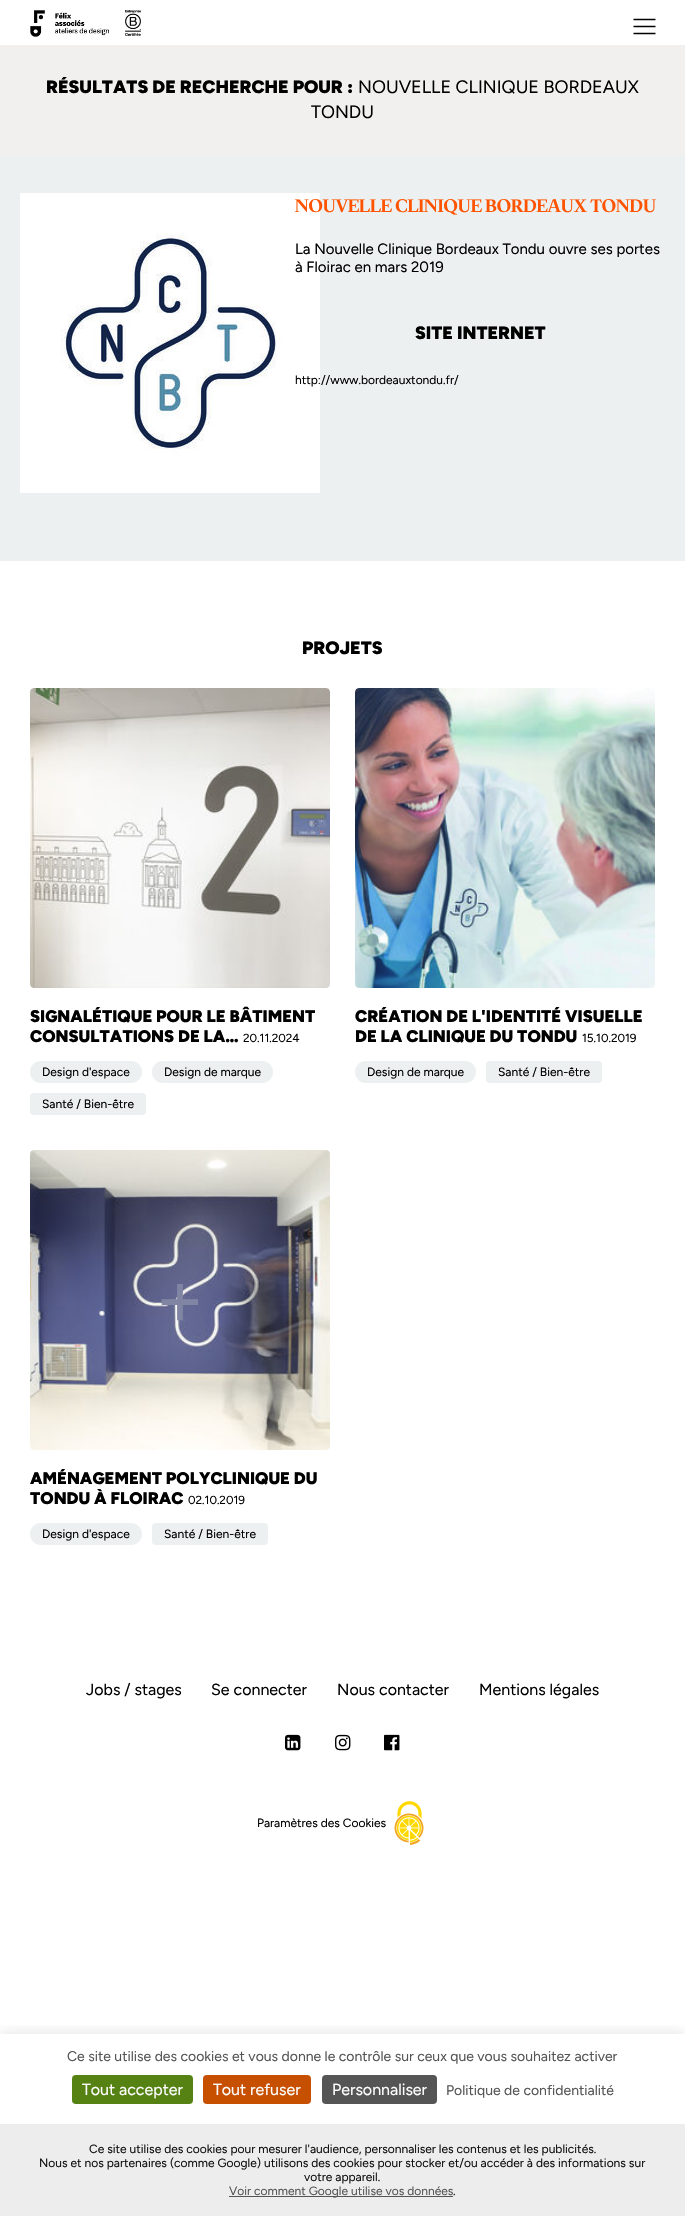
static SkFont makeFont(const char* family, int weight, float size, bool italic = false) {
  SkFontStyle style(weight, SkFontStyle::kNormal_Width,
    italic ? SkFontStyle::kItalic_Slant : SkFontStyle::kUpright_Slant);
  SkFont result(fontMgr->matchFamilyStyle(family, style), size);
  result.setSubpixel(true);
  return result;
}

static void text(SkCanvas* c, const char* s, float x, float y, const SkFont& font, SkColor color) {
  SkPaint ink(SkColor4f::FromColor(color));
  ink.setAntiAlias(true);
  c->drawString(s, x, y, font, ink);
}

static void box(SkCanvas* c, float l, float t, float r, float b, SkColor color) {
  SkPaint ink(SkColor4f::FromColor(color));
  ink.setAntiAlias(true);
  c->drawRect(SkRect::MakeLTRB(l, t, r, b), ink);
}

static void roundBox(SkCanvas* c, float l, float t, float r, float b, float radius, SkColor color) {
  SkPaint ink(SkColor4f::FromColor(color));
  ink.setAntiAlias(true);
  c->drawRoundRect(SkRect::MakeLTRB(l, t, r, b), radius, radius, ink);
}

static void picture(SkCanvas* c, const char* path, float l, float t, float r, float b) {
  auto image = SkImages::DeferredFromEncodedData(SkData::MakeFromFileName(path));
  c->drawImageRect(image, SkRect::MakeLTRB(l, t, r, b), SkSamplingOptions());
}

void draw(SkCanvas* c) {
  SkPaint paint;
  paint.setAntiAlias(true);
  c->clear(0xffffffff);
  box(c, 0, 155, 685, 561, 0xffecf0f0);
  picture(c, "img_01.png", 30, 10, 109, 37);
  picture(c, "img_02.png", 125, 10, 141, 36);
  paint.setStyle(SkPaint::kStroke_Style);
  paint.setStrokeWidth(1.6f);
  paint.setColor(0xff000000);
  c->drawPath(SkPathBuilder().moveTo(633.5f, 19.5f).lineTo(655.5f, 19.5f).moveTo(633.5f, 26.5f).lineTo(655.5f, 26.5f).moveTo(633.5f, 33.5f).lineTo(655.5f, 33.5f).detach(), paint);
  box(c, 0, 45, 685, 155, 0xfff1f0ef);
  SkFont face1 = makeFont("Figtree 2", 300, 18);
  text(c, "RÉSULTATS DE RECHERCHE POUR :", 46, 93, face1, 0xff000000);
  SkFont face2 = makeFont("Figtree", 300, 18);
  text(c, "NOUVELLE CLINIQUE BORDEAUX", 358, 93, face2, 0xff000000);
  text(c, "TONDU", 311, 118, face2, 0xff000000);
  picture(c, "img_03.png", 20, 193, 320, 493);
  SkFont face3 = makeFont("Wittgenstein", 700, 18);
  text(c, "NOUVELLE CLINIQUE BORDEAUX TONDU", 295, 212, face3, 0xffff5300);
  SkFont face4 = makeFont("Figtree", 300, 15);
  text(c, "La Nouvelle Clinique Bordeaux Tondu ouvre ses portes", 295, 254, face4, 0xff000000);
  text(c, "à Floirac en mars 2019", 295, 272, face4, 0xff000000);
  text(c, "SITE INTERNET", 415, 339, face1, 0xff000000);
  SkFont face5 = makeFont("Figtree", 300, 12);
  text(c, "http://www.bordeauxtondu.fr/", 295, 384, face5, 0xff000000);
  text(c, "PROJETS", 302, 654, face1, 0xff000000);
  picture(c, "img_04.png", 30, 688, 330, 988);
  SkFont face6 = makeFont("Figtree 2", 300, 16.75f);
  text(c, "SIGNALÉTIQUE POUR LE BÂTIMENT", 30, 1022, face6, 0xff000000);
  text(c, "CONSULTATIONS DE LA…", 30, 1042, face6, 0xff000000);
  SkFont face7 = makeFont("Figtree", 300, 11.75f);
  text(c, "20.11.2024", 243, 1042, face7, 0xff000000);
  roundBox(c, 30, 1061, 142, 1083, 11, 0xffecf0f0);
  text(c, "Design d'espace", 42, 1076, face5, 0xff000000);
  roundBox(c, 152, 1061, 273, 1083, 11, 0xffecf0f0);
  text(c, "Design de marque", 164, 1076, face5, 0xff000000);
  roundBox(c, 30, 1093, 146, 1115, 4, 0xffecf0f0);
  text(c, "Santé / Bien-être", 42, 1108, face5, 0xff000000);
  picture(c, "img_05.png", 355, 688, 655, 988);
  text(c, "CRÉATION DE L'IDENTITÉ VISUELLE", 355, 1022, face6, 0xff000000);
  text(c, "DE LA CLINIQUE DU TONDU", 355, 1042, face6, 0xff000000);
  text(c, "15.10.2019", 582, 1042, face7, 0xff000000);
  roundBox(c, 355, 1061, 476, 1083, 11, 0xffecf0f0);
  text(c, "Design de marque", 367, 1076, face5, 0xff000000);
  roundBox(c, 486, 1061, 602, 1083, 4, 0xffecf0f0);
  text(c, "Santé / Bien-être", 498, 1076, face5, 0xff000000);
  picture(c, "img_06.png", 30, 1150, 330, 1450);
  SkFont face8 = makeFont("Figtree", 300, 80);
  text(c, "+", 155, 1326, face8, 0xff8185a4);
  text(c, "AMÉNAGEMENT POLYCLINIQUE DU", 30, 1484, face6, 0xff000000);
  text(c, "TONDU À FLOIRAC", 30, 1504, face6, 0xff000000);
  text(c, "02.10.2019", 188, 1504, face7, 0xff000000);
  roundBox(c, 30, 1523, 142, 1545, 11, 0xffecf0f0);
  text(c, "Design d'espace", 42, 1538, face5, 0xff000000);
  roundBox(c, 152, 1523, 268, 1545, 4, 0xffecf0f0);
  text(c, "Santé / Bien-être", 164, 1538, face5, 0xff000000);
  SkFont face9 = makeFont("Figtree", 300, 16);
  text(c, "Jobs / stages", 86, 1695, face9, 0xff000000);
  text(c, "Se connecter", 211, 1695, face9, 0xff000000);
  text(c, "Nous contacter", 337, 1695, face9, 0xff000000);
  text(c, "Mentions légales", 479, 1695, face9, 0xff000000);
  picture(c, "img_07.png", 285, 1734, 301, 1751);
  picture(c, "img_08.png", 335, 1734, 351, 1751);
  picture(c, "img_09.png", 384, 1734, 400, 1751);
  picture(c, "img_10.png", 394, 1801, 424, 1845);
  text(c, "Paramètres des Cookies", 257, 1827, face5, 0xff000000);
  c->save();
  c->clipRect(SkRect::MakeLTRB(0, 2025, 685, 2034));
  paint.setStyle(SkPaint::kFill_Style);
  paint.setColor(0x2b424242);
  paint.setMaskFilter(SkMaskFilter::MakeBlur(kNormal_SkBlurStyle, 7.5f));
  c->drawRect(SkRect::MakeLTRB(0, 2034, 685, 2240), paint);
  paint.setMaskFilter(nullptr);
  c->restore();
  SkFont face10 = makeFont("Figtree", 300, 14);
  text(c, "Ce site utilise des cookies et vous donne le contrôle sur ceux que vous souhaitez activer", 67, 2061, face10, 0xff555555);
  roundBox(c, 72, 2075, 193, 2104, 4, 0xff568214);
  text(c, "Tout accepter", 82, 2095, face9, 0xffffffff);
  roundBox(c, 203, 2075, 311, 2104, 4, 0xffc75000);
  text(c, "Tout refuser", 213, 2095, face9, 0xffffffff);
  roundBox(c, 322, 2075, 437, 2104, 4, 0xff555555);
  text(c, "Personnaliser", 332, 2095, face9, 0xffffffff);
  text(c, "Politique de confidentialité", 446, 2095, face10, 0xff555555);
  box(c, 0, 2124, 685, 2216, 0xffededed);
  text(c, "Ce site utilise des cookies pour mesurer l'audience, personnaliser les contenus et les publicités.", 89, 2153, face5, 0xff111111);
  text(c, "Nous et nos partenaires (comme Google) utilisons des cookies pour stocker et/ou accéder à des informations sur", 39, 2167, face5, 0xff111111);
  text(c, "votre appareil.", 304, 2181, face5, 0xff111111);
  box(c, 229, 2196, 453, 2197, 0xff555555);
  text(c, "Voir comment Google utilise vos données", 229, 2195, face5, 0xff555555);
  text(c, ".", 453, 2195, face5, 0xff111111);
}
